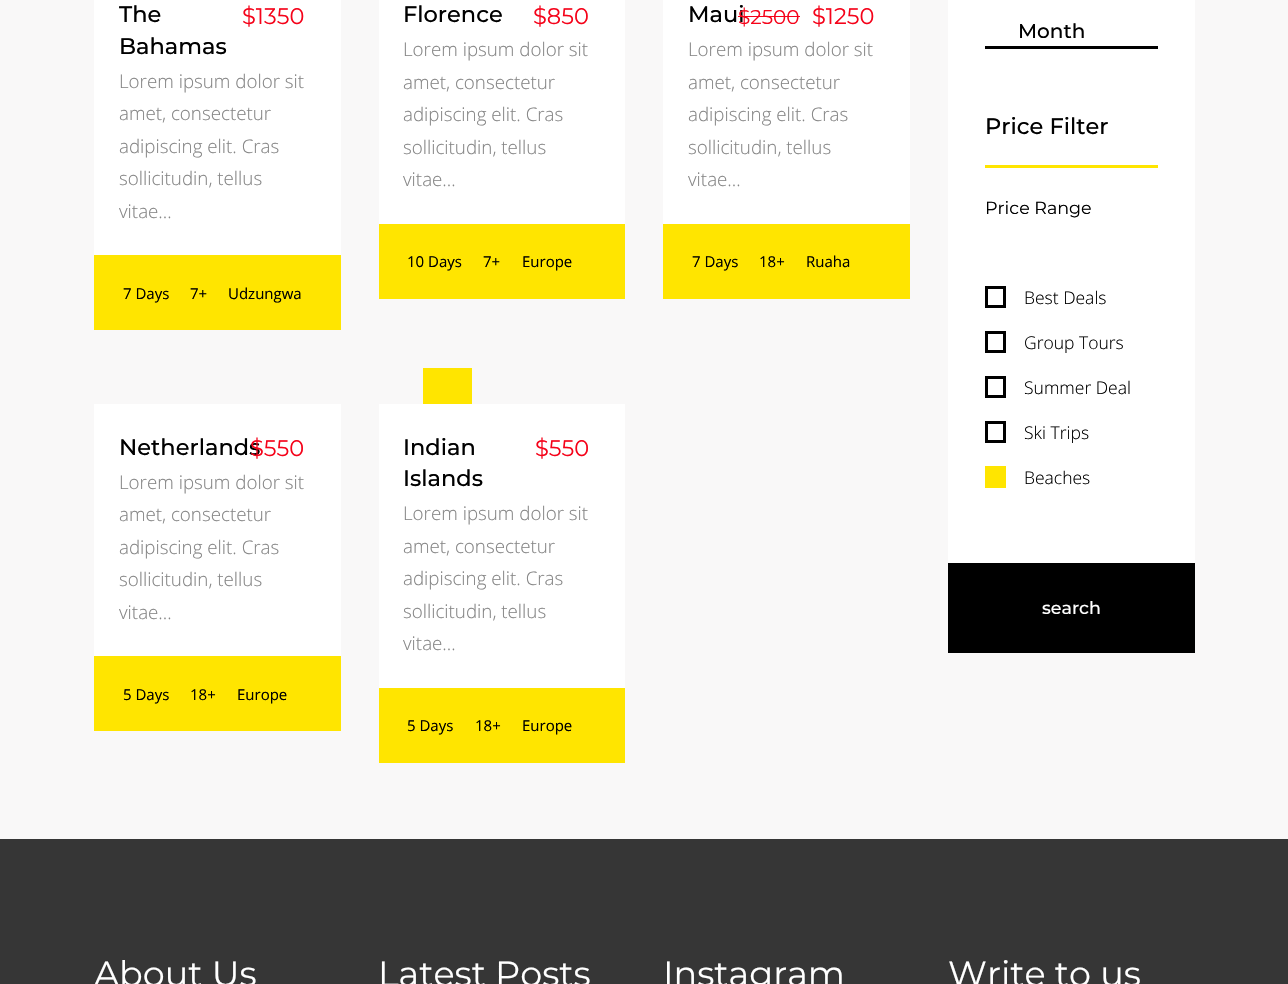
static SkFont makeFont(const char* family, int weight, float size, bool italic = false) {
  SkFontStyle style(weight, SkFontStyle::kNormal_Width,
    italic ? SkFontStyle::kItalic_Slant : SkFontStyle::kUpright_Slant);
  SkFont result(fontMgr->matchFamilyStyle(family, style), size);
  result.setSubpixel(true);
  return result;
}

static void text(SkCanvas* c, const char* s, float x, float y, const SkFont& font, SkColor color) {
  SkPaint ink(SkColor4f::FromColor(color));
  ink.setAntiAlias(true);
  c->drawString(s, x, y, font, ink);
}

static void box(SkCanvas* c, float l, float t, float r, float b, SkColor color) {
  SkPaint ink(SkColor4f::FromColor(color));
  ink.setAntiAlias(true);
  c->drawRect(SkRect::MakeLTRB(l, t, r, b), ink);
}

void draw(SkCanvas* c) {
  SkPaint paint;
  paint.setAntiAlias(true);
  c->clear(0xfff9f8f8);
  box(c, 94, 0, 341, 255, 0xffffffff);
  SkFont face1 = makeFont("Montserrat", 500, 22.5f);
  text(c, "The", 119, 22, face1, 0xff000000);
  text(c, "Bahamas", 119, 54, face1, 0xff000000);
  SkFont face2 = makeFont("Montserrat", 400, 22.5f);
  text(c, "$1350", 242, 24, face2, 0xfff5031a);
  SkFont face3 = makeFont("Open Sans", 300, 18.75f);
  text(c, "Lorem ipsum dolor sit", 119, 88, face3, 0xff868686);
  text(c, "amet, consectetur", 119, 120, face3, 0xff868686);
  text(c, "adipiscing elit. Cras", 119, 153, face3, 0xff868686);
  text(c, "sollicitudin, tellus", 119, 185, face3, 0xff868686);
  text(c, "vitae…", 119, 218, face3, 0xff868686);
  box(c, 94, 255, 341, 330, 0xffffe500);
  SkFont face4 = makeFont("Open Sans", 400, 15);
  text(c, "7 Days", 123, 299, face4, 0xff000000);
  text(c, "7+", 190, 299, face4, 0xff000000);
  text(c, "Udzungwa", 228, 299, face4, 0xff000000);
  box(c, 379, 0, 625, 224, 0xffffffff);
  text(c, "Florence", 403, 22, face1, 0xff000000);
  text(c, "$850", 533, 24, face2, 0xfff5031a);
  text(c, "Lorem ipsum dolor sit", 403, 56, face3, 0xff868686);
  text(c, "amet, consectetur", 403, 89, face3, 0xff868686);
  text(c, "adipiscing elit. Cras", 403, 121, face3, 0xff868686);
  text(c, "sollicitudin, tellus", 403, 154, face3, 0xff868686);
  text(c, "vitae…", 403, 186, face3, 0xff868686);
  box(c, 379, 224, 625, 299, 0xffffe500);
  text(c, "10 Days", 407, 267, face4, 0xff000000);
  text(c, "7+", 483, 267, face4, 0xff000000);
  text(c, "Europe", 522, 267, face4, 0xff000000);
  box(c, 663, 0, 910, 224, 0xffffffff);
  text(c, "Maui", 688, 22, face1, 0xff000000);
  SkFont face5 = makeFont("Montserrat", 400, 20);
  text(c, "$2500", 738, 24, face5, 0xfff5031a);
  box(c, 738, 16, 800, 17, 0xfff5031a);
  text(c, "$1250", 812, 24, face2, 0xfff5031a);
  text(c, "Lorem ipsum dolor sit", 688, 56, face3, 0xff868686);
  text(c, "amet, consectetur", 688, 89, face3, 0xff868686);
  text(c, "adipiscing elit. Cras", 688, 121, face3, 0xff868686);
  text(c, "sollicitudin, tellus", 688, 154, face3, 0xff868686);
  text(c, "vitae…", 688, 186, face3, 0xff868686);
  box(c, 663, 224, 910, 299, 0xffffe500);
  text(c, "7 Days", 692, 267, face4, 0xff000000);
  text(c, "18+", 759, 267, face4, 0xff000000);
  text(c, "Ruaha", 806, 267, face4, 0xff000000);
  box(c, 94, 404, 341, 656, 0xffffffff);
  text(c, "Netherlands", 119, 455, face1, 0xff000000);
  text(c, "$550", 250, 456, face2, 0xfff5031a);
  text(c, "Lorem ipsum dolor sit", 119, 489, face3, 0xff868686);
  text(c, "amet, consectetur", 119, 521, face3, 0xff868686);
  text(c, "adipiscing elit. Cras", 119, 554, face3, 0xff868686);
  text(c, "sollicitudin, tellus", 119, 586, face3, 0xff868686);
  text(c, "vitae…", 119, 619, face3, 0xff868686);
  box(c, 94, 656, 341, 731, 0xffffe500);
  text(c, "5 Days", 123, 700, face4, 0xff000000);
  text(c, "18+", 190, 700, face4, 0xff000000);
  text(c, "Europe", 237, 700, face4, 0xff000000);
  box(c, 423, 368, 472, 404, 0xffffe500);
  box(c, 379, 404, 625, 688, 0xffffffff);
  text(c, "Indian", 403, 455, face1, 0xff000000);
  text(c, "Islands", 403, 486, face1, 0xff000000);
  text(c, "$550", 535, 456, face2, 0xfff5031a);
  text(c, "Lorem ipsum dolor sit", 403, 520, face3, 0xff868686);
  text(c, "amet, consectetur", 403, 553, face3, 0xff868686);
  text(c, "adipiscing elit. Cras", 403, 585, face3, 0xff868686);
  text(c, "sollicitudin, tellus", 403, 618, face3, 0xff868686);
  text(c, "vitae…", 403, 650, face3, 0xff868686);
  box(c, 379, 688, 625, 763, 0xffffe500);
  text(c, "5 Days", 407, 731, face4, 0xff000000);
  text(c, "18+", 475, 731, face4, 0xff000000);
  text(c, "Europe", 522, 731, face4, 0xff000000);
  box(c, 948, 0, 1195, 563, 0xffffffff);
  box(c, 985, 46, 1158, 49, 0xff000000);
  SkFont face6 = makeFont("Montserrat", 500, 20);
  text(c, "Month", 1018, 38, face6, 0xff000000);
  text(c, "Price Filter", 985, 134, face1, 0xff000000);
  box(c, 985, 165, 1158, 168, 0xffffe500);
  SkFont face7 = makeFont("Montserrat", 400, 17.5f);
  text(c, "Price Range", 985, 214, face7, 0xff000000);
  paint.setStyle(SkPaint::kStroke_Style);
  paint.setStrokeWidth(3);
  paint.setColor(0xff000000);
  c->drawRect(SkRect::MakeLTRB(986.5f, 287.5f, 1004.5f, 306.5f), paint);
  SkFont face8 = makeFont("Open Sans", 300, 17.5f);
  text(c, "Best Deals", 1024, 304, face8, 0xff000000);
  c->drawRect(SkRect::MakeLTRB(986.5f, 332.5f, 1004.5f, 351.5f), paint);
  text(c, "Group Tours", 1024, 349, face8, 0xff000000);
  c->drawRect(SkRect::MakeLTRB(986.5f, 377.5f, 1004.5f, 396.5f), paint);
  text(c, "Summer Deal", 1024, 394, face8, 0xff000000);
  c->drawRect(SkRect::MakeLTRB(986.5f, 422.5f, 1004.5f, 441.5f), paint);
  text(c, "Ski Trips", 1024, 439, face8, 0xff000000);
  box(c, 985, 466, 1006, 488, 0xffffe500);
  text(c, "Beaches", 1024, 484, face8, 0xff000000);
  box(c, 948, 563, 1195, 653, 0xff000000);
  SkFont face9 = makeFont("Montserrat", 500, 17.5f);
  text(c, "search", 1042, 614, face9, 0xffffffff);
  box(c, 0, 839, 1288, 984, 0xff363636);
  SkFont face10 = makeFont("Montserrat", 400, 35);
  text(c, "About Us", 94, 986, face10, 0xffffffff);
  text(c, "Latest Posts", 378, 986, face10, 0xffffffff);
  text(c, "Instagram", 663, 986, face10, 0xffffffff);
  text(c, "Write to us", 948, 986, face10, 0xffffffff);
}
